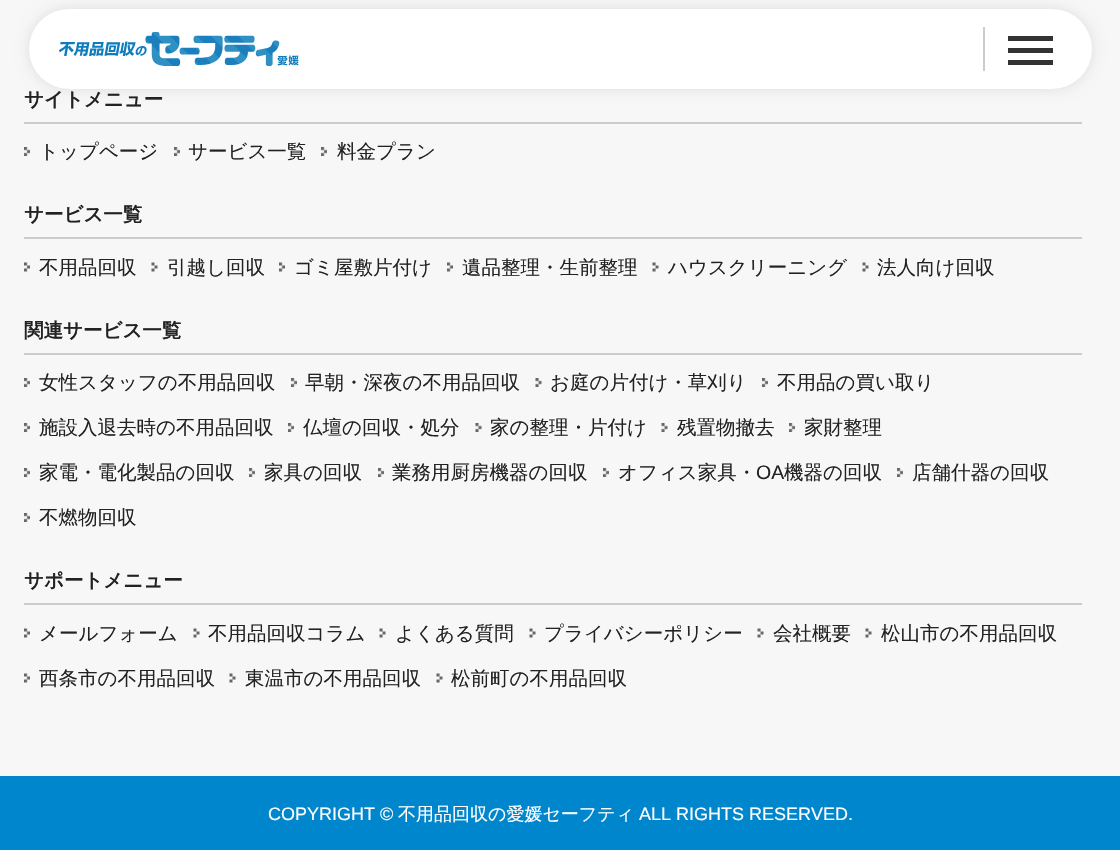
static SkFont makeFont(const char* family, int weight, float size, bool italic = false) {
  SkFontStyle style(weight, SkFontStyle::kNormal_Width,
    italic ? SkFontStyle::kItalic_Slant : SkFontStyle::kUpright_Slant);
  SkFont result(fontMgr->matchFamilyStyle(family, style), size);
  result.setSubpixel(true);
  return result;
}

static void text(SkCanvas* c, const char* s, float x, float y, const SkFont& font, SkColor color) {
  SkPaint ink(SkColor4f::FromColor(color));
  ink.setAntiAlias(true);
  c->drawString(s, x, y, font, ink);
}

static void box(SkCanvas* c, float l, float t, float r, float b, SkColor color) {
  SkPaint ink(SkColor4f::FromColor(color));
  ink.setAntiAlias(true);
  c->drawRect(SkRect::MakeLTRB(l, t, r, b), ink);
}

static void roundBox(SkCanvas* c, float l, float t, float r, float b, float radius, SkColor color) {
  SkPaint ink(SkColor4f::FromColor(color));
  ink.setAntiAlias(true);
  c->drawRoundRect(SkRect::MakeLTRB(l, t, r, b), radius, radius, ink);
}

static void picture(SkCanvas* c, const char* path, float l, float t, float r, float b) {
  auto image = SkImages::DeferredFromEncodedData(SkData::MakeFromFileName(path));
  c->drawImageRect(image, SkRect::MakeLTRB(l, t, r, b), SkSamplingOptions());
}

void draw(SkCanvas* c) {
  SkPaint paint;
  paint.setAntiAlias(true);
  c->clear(0xfff7f7f7);
  paint.setColor(0x1a000000);
  paint.setMaskFilter(SkMaskFilter::MakeBlur(kNormal_SkBlurStyle, 7));
  c->drawRoundRect(SkRect::MakeLTRB(29, 9, 1092, 89), 40, 40, paint);
  paint.setMaskFilter(nullptr);
  roundBox(c, 29, 9, 1092, 89, 40, 0xffffffff);
  picture(c, "img_01.png", 59, 32, 299, 66);
  box(c, 983, 27, 985, 71, 0xffcccccc);
  box(c, 1008, 36, 1053, 41, 0xff333333);
  box(c, 1008, 48, 1053, 53, 0xff333333);
  box(c, 1008, 60, 1053, 65, 0xff333333);
  box(c, 24, 122, 1082, 124, 0xffcccccc);
  SkFont face1 = makeFont("WenQuanYi Zen Hei", 700, 19.5f);
  text(c, "サイトメニュー", 24, 106, face1, 0xff222222);
  picture(c, "img_02.png", 24, 147, 30, 156);
  SkFont face2 = makeFont("WenQuanYi Zen Hei", 500, 19.5f);
  text(c, "トップページ", 39, 158, face2, 0xff222222);
  picture(c, "img_02.png", 174, 147, 180, 156);
  text(c, "サービス一覧", 188, 158, face2, 0xff222222);
  picture(c, "img_02.png", 321, 147, 327, 156);
  text(c, "料金プラン", 337, 158, face2, 0xff222222);
  box(c, 24, 237, 1082, 239, 0xffcccccc);
  text(c, "サービス一覧", 24, 221, face1, 0xff222222);
  picture(c, "img_03.png", 24, 262, 30, 272);
  text(c, "不用品回収", 39, 274, face2, 0xff222222);
  picture(c, "img_04.png", 151, 262, 158, 272);
  text(c, "引越し回収", 167, 274, face2, 0xff222222);
  picture(c, "img_03.png", 279, 262, 285, 272);
  text(c, "ゴミ屋敷片付け", 294, 274, face2, 0xff222222);
  picture(c, "img_03.png", 447, 262, 453, 272);
  text(c, "遺品整理・生前整理", 462, 274, face2, 0xff222222);
  picture(c, "img_05.png", 652, 262, 659, 272);
  text(c, "ハウスクリーニング", 668, 274, face2, 0xff222222);
  picture(c, "img_04.png", 862, 262, 869, 272);
  text(c, "法人向け回収", 877, 274, face2, 0xff222222);
  box(c, 24, 353, 1082, 355, 0xffcccccc);
  text(c, "関連サービス一覧", 24, 337, face1, 0xff222222);
  picture(c, "img_02.png", 24, 378, 30, 387);
  text(c, "女性スタッフの不用品回収", 39, 389, face2, 0xff222222);
  picture(c, "img_02.png", 291, 378, 297, 387);
  text(c, "早朝・深夜の不用品回収", 305, 389, face2, 0xff222222);
  picture(c, "img_06.png", 535, 378, 542, 387);
  text(c, "お庭の片付け・草刈り", 550, 389, face2, 0xff222222);
  picture(c, "img_02.png", 762, 378, 768, 387);
  text(c, "不用品の買い取り", 777, 389, face2, 0xff222222);
  picture(c, "img_02.png", 24, 423, 30, 432);
  text(c, "施設入退去時の不用品回収", 39, 434, face2, 0xff222222);
  picture(c, "img_02.png", 288, 423, 294, 432);
  text(c, "仏壇の回収・処分", 303, 434, face2, 0xff222222);
  picture(c, "img_07.png", 475, 423, 482, 432);
  text(c, "家の整理・片付け", 490, 434, face2, 0xff222222);
  picture(c, "img_06.png", 661, 423, 668, 432);
  text(c, "残置物撤去", 677, 434, face2, 0xff222222);
  picture(c, "img_02.png", 789, 423, 795, 432);
  text(c, "家財整理", 804, 434, face2, 0xff222222);
  picture(c, "img_02.png", 24, 468, 30, 477);
  text(c, "家電・電化製品の回収", 39, 479, face2, 0xff222222);
  picture(c, "img_02.png", 249, 468, 255, 477);
  text(c, "家具の回収", 264, 479, face2, 0xff222222);
  picture(c, "img_02.png", 378, 468, 384, 477);
  text(c, "業務用厨房機器の回収", 392, 479, face2, 0xff222222);
  picture(c, "img_02.png", 603, 468, 609, 477);
  text(c, "オフィス家具・", 618, 479, face2, 0xff222222);
  SkFont face3 = makeFont("Liberation Sans", 400, 19.5f);
  text(c, "OA", 756, 479, face3, 0xff222222);
  text(c, "機器の回収", 784, 479, face2, 0xff222222);
  picture(c, "img_02.png", 897, 468, 903, 477);
  text(c, "店舗什器の回収", 912, 479, face2, 0xff222222);
  picture(c, "img_02.png", 24, 513, 30, 522);
  text(c, "不燃物回収", 39, 524, face2, 0xff222222);
  box(c, 24, 603, 1082, 605, 0xffcccccc);
  text(c, "サポートメニュー", 24, 587, face1, 0xff222222);
  picture(c, "img_03.png", 24, 628, 30, 638);
  text(c, "メールフォーム", 39, 640, face2, 0xff222222);
  picture(c, "img_04.png", 193, 628, 200, 638);
  text(c, "不用品回収コラム", 208, 640, face2, 0xff222222);
  picture(c, "img_05.png", 379, 628, 386, 638);
  text(c, "よくある質問", 395, 640, face2, 0xff222222);
  picture(c, "img_05.png", 529, 628, 536, 638);
  text(c, "プライバシーポリシー", 544, 640, face2, 0xff222222);
  picture(c, "img_05.png", 757, 628, 764, 638);
  text(c, "会社概要", 773, 640, face2, 0xff222222);
  picture(c, "img_04.png", 865, 628, 872, 638);
  text(c, "松山市の不用品回収", 881, 640, face2, 0xff222222);
  picture(c, "img_03.png", 24, 673, 30, 683);
  text(c, "西条市の不用品回収", 39, 685, face2, 0xff222222);
  picture(c, "img_04.png", 229, 673, 236, 683);
  text(c, "東温市の不用品回収", 245, 685, face2, 0xff222222);
  picture(c, "img_05.png", 436, 673, 443, 683);
  text(c, "松前町の不用品回収", 451, 685, face2, 0xff222222);
  box(c, 0, 776, 1120, 850, 0xff0086cd);
  SkFont face4 = makeFont("Liberation Sans", 400, 18);
  text(c, "COPYRIGHT ©", 268, 820, face4, 0xffffffff);
  SkFont face5 = makeFont("WenQuanYi Zen Hei", 500, 18);
  text(c, "不用品回収の愛媛セーフティ", 398, 820, face5, 0xffffffff);
  text(c, "ALL RIGHTS RESERVED.", 639, 820, face4, 0xffffffff);
}
